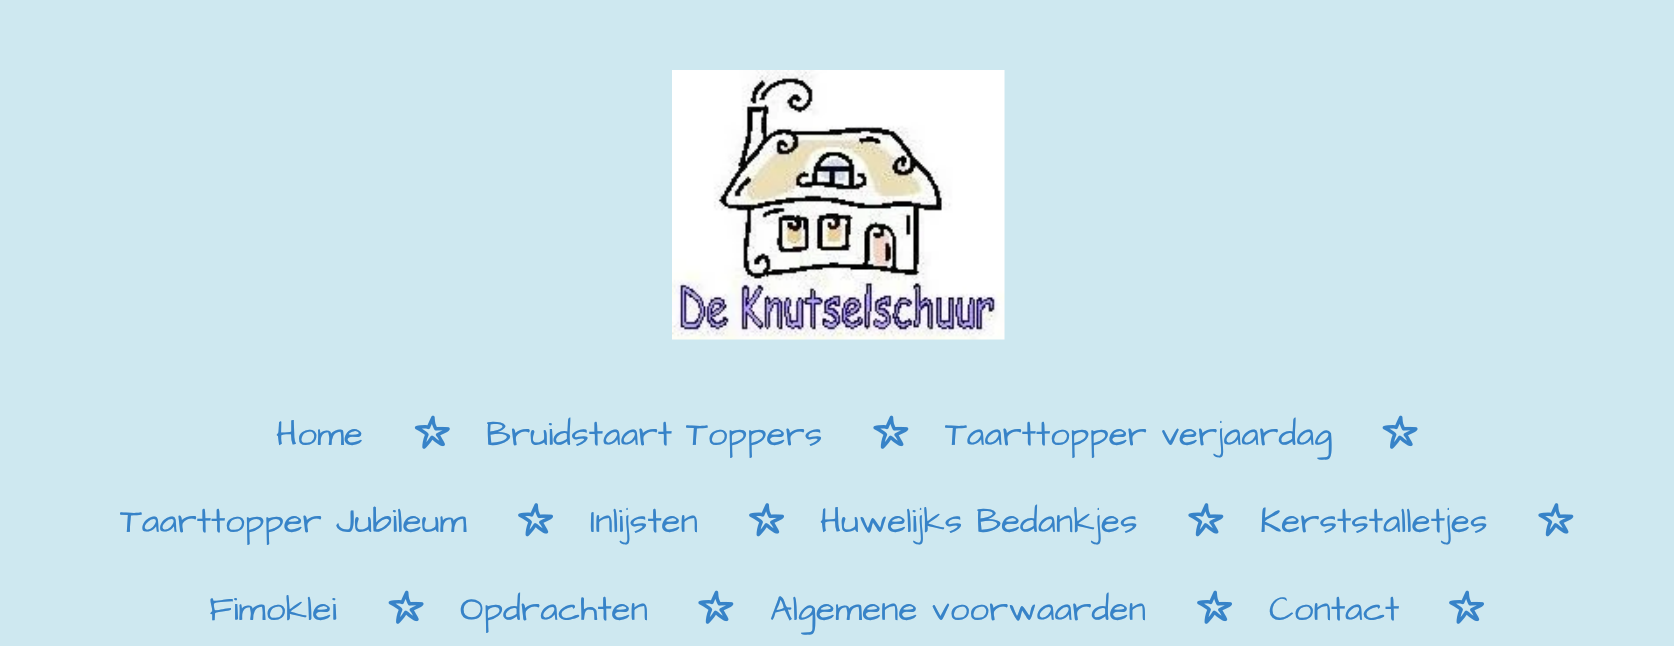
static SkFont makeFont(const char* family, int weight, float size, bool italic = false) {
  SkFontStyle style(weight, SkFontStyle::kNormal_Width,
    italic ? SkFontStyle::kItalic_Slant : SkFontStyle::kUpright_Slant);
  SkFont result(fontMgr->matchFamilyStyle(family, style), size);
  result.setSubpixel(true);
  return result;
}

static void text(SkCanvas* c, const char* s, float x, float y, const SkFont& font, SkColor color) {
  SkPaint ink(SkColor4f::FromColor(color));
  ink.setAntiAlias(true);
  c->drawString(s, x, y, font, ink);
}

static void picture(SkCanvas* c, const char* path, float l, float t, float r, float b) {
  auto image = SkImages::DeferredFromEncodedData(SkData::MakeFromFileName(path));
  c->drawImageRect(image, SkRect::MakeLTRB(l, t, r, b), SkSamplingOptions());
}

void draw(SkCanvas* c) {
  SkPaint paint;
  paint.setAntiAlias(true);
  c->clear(0xffcee8f0);
  picture(c, "img_01.png", 672, 70, 1005, 340);
  SkFont face1 = makeFont("Architects Daughter", 400, 35);
  text(c, "Home", 276, 445, face1, 0xff3783c8);
  picture(c, "img_02.png", 414, 415, 450, 449);
  text(c, "Bruidstaart Toppers", 486, 445, face1, 0xff3783c8);
  picture(c, "img_03.png", 873, 415, 909, 449);
  text(c, "Taarttopper verjaardag", 945, 445, face1, 0xff3783c8);
  picture(c, "img_04.png", 1382, 415, 1418, 449);
  text(c, "Taarttopper Jubileum", 120, 532, face1, 0xff3783c8);
  picture(c, "img_05.png", 518, 503, 553, 537);
  text(c, "Inlijsten", 590, 532, face1, 0xff3783c8);
  picture(c, "img_05.png", 749, 503, 784, 537);
  text(c, "Huwelijks Bedankjes", 820, 532, face1, 0xff3783c8);
  picture(c, "img_06.png", 1188, 503, 1224, 537);
  text(c, "Kerststalletjes", 1260, 532, face1, 0xff3783c8);
  picture(c, "img_06.png", 1538, 503, 1574, 537);
  text(c, "Fimoklei", 209, 620, face1, 0xff3783c8);
  picture(c, "img_04.png", 388, 590, 424, 624);
  text(c, "Opdrachten", 460, 620, face1, 0xff3783c8);
  picture(c, "img_03.png", 698, 590, 734, 624);
  text(c, "Algemene voorwaarden", 770, 620, face1, 0xff3783c8);
  picture(c, "img_07.png", 1197, 590, 1232, 624);
  text(c, "Contact", 1269, 620, face1, 0xff3783c8);
  picture(c, "img_07.png", 1449, 590, 1484, 624);
}
